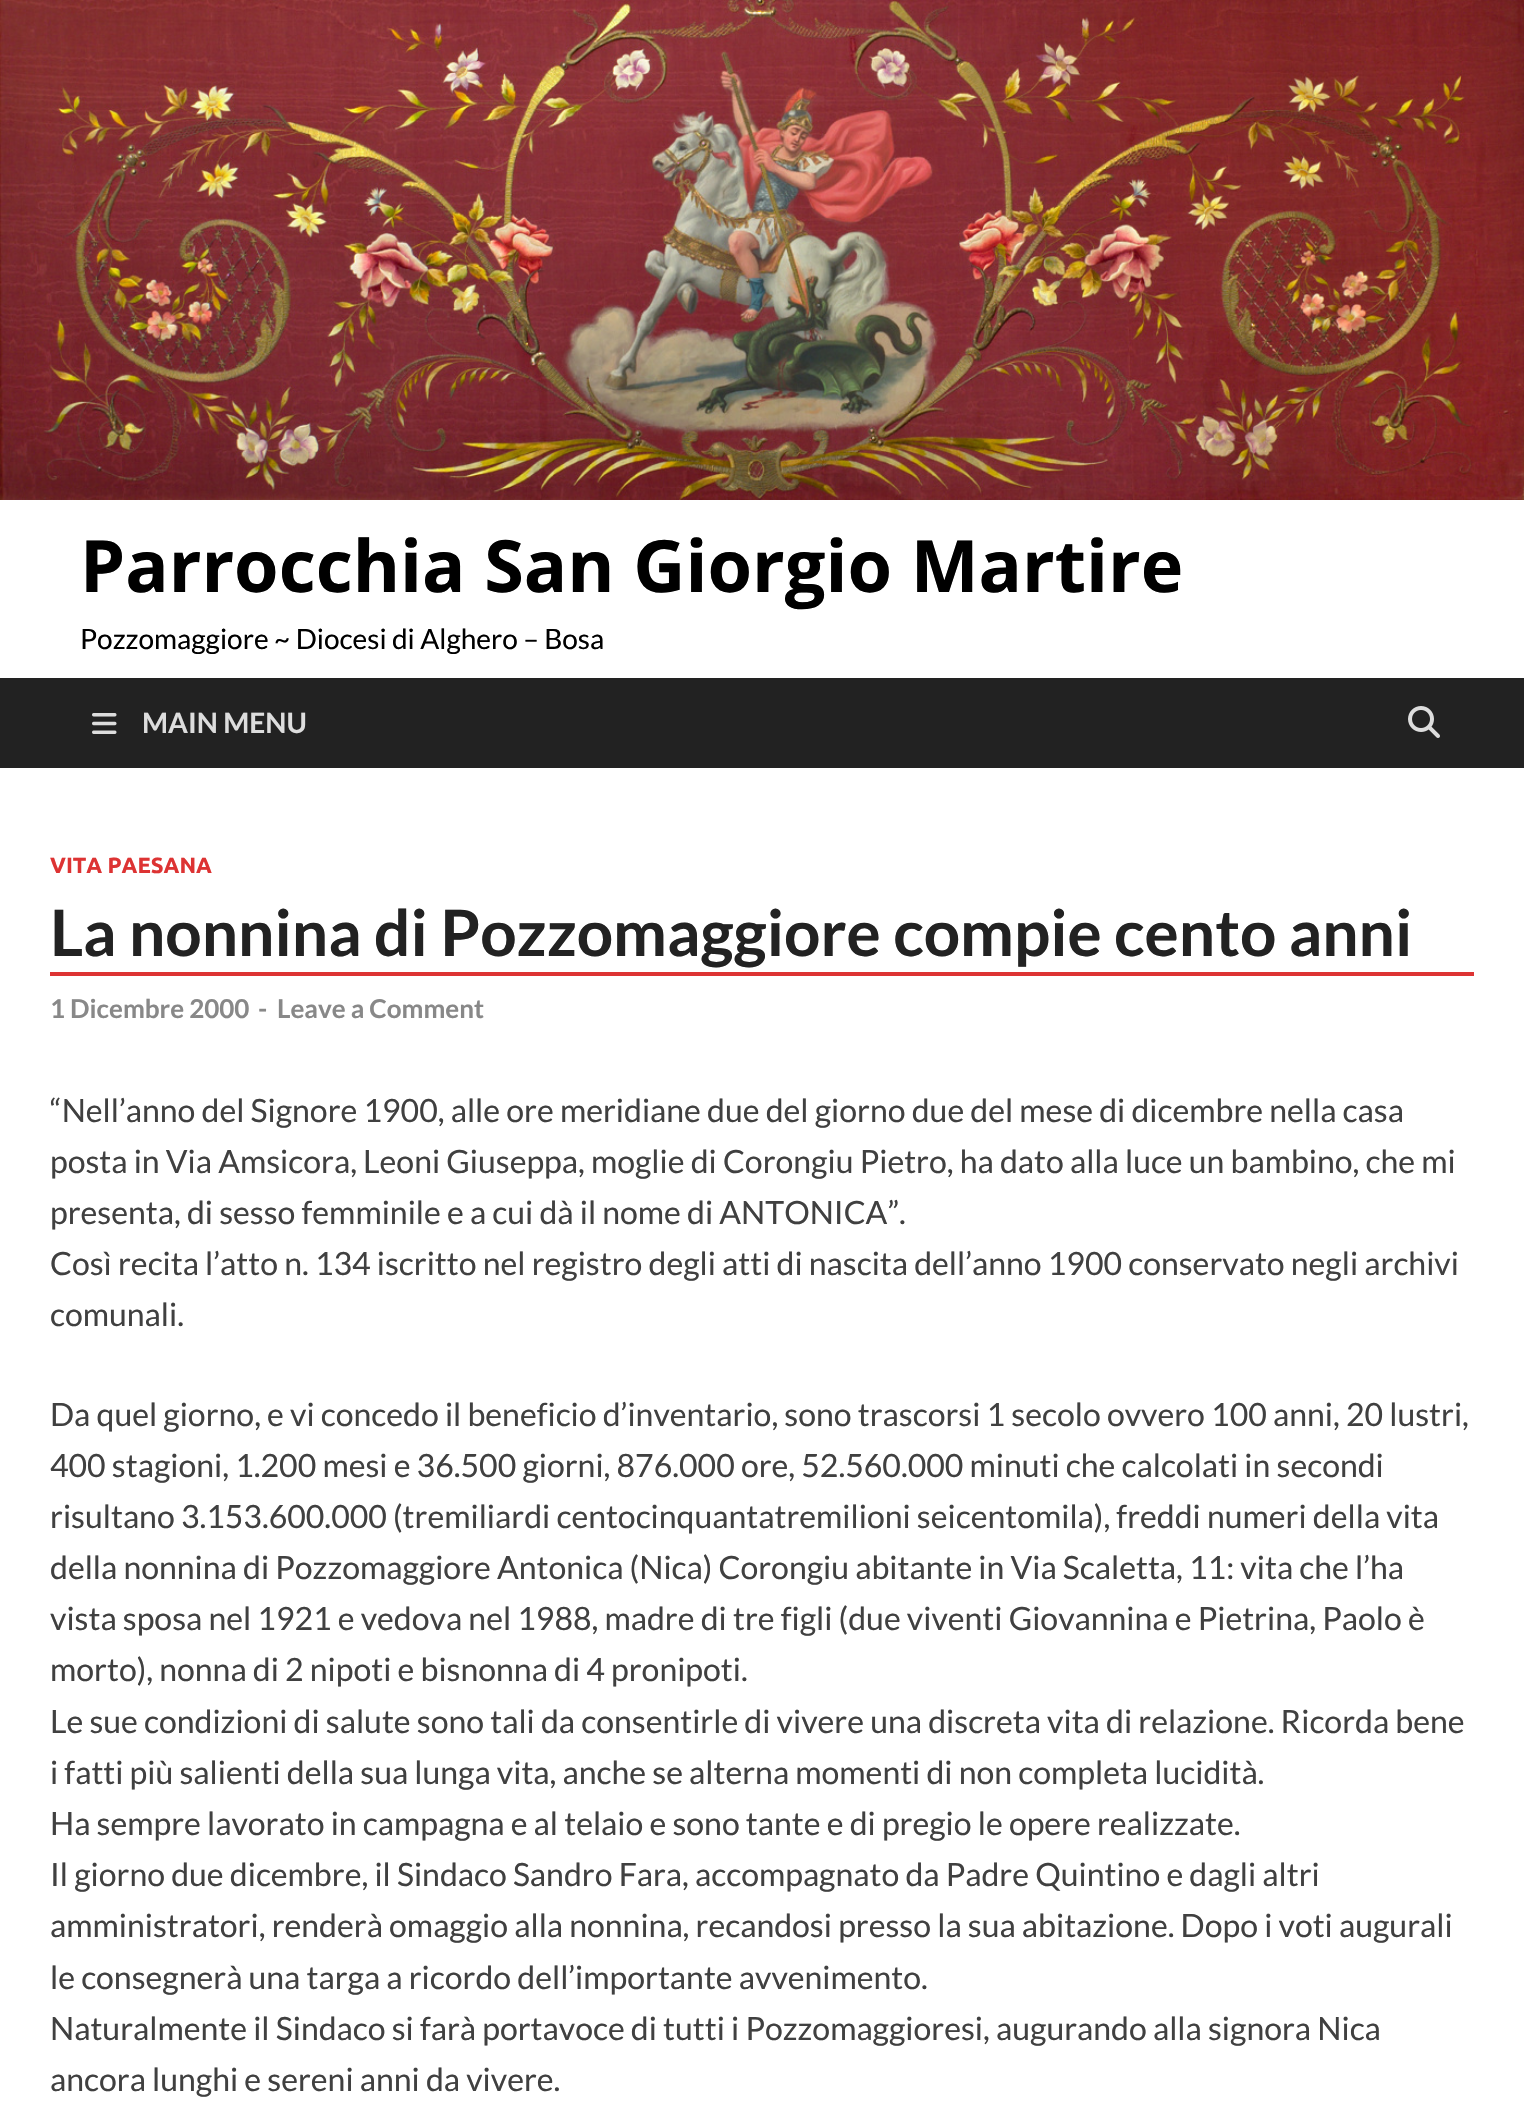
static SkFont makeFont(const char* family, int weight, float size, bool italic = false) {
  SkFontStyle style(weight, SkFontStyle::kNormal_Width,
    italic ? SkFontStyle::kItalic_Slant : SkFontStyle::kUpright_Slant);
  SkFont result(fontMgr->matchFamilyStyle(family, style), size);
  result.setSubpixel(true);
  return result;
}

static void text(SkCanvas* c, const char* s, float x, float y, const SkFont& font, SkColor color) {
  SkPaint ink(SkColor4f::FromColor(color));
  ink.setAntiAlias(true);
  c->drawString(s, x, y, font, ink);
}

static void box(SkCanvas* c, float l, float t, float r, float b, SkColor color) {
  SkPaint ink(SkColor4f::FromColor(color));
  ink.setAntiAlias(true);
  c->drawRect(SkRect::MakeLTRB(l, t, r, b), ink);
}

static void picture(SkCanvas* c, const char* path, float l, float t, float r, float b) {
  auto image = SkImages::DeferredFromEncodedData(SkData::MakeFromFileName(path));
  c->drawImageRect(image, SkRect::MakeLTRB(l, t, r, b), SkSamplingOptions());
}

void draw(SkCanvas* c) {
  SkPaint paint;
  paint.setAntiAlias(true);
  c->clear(0xffffffff);
  picture(c, "img_01.png", 0, 0, 1524, 500);
  SkFont face1 = makeFont("Open Sans", 700, 72);
  text(c, "Parrocchia San Giorgio Martire", 80, 592, face1, 0xff000000);
  SkFont face2 = makeFont("Lato", 400, 28);
  text(c, "Pozzomaggiore ~ Diocesi di Alghero – Bosa", 80, 649, face2, 0xff000000);
  box(c, 0, 678, 1524, 768, 0xff222222);
  picture(c, "img_02.png", 92, 713, 117, 734);
  SkFont face3 = makeFont("Lato", 700, 28);
  text(c, "MAIN MENU", 142, 733, face3, 0xffdddddd);
  picture(c, "img_03.png", 1408, 706, 1440, 738);
  SkFont face4 = makeFont("Ubuntu", 700, 22);
  text(c, "VITA PAESANA", 50, 873, face4, 0xffdd3333);
  box(c, 50, 972, 1474, 976, 0xffdd3333);
  SkFont face5 = makeFont("Lato", 700, 64);
  text(c, "La nonnina di Pozzomaggiore compie cento anni", 50, 956, face5, 0xff222222);
  SkFont face6 = makeFont("Lato", 700, 26);
  text(c, "1 Dicembre 2000", 50, 1018, face6, 0xff888888);
  text(c, "-", 258, 1018, face6, 0xff888888);
  text(c, "Leave a Comment", 277, 1018, face6, 0xff888888);
  SkFont face7 = makeFont("Lato", 400, 32);
  text(c, "“Nell’anno del Signore 1900, alle ore meridiane due del giorno due del mese di dicembre nella casa", 50, 1122, face7, 0xff404040);
  text(c, "posta in Via Amsicora, Leoni Giuseppa, moglie di Corongiu Pietro, ha dato alla luce un bambino, che mi", 50, 1173, face7, 0xff404040);
  text(c, "presenta, di sesso femminile e a cui dà il nome di ANTONICA”.", 50, 1224, face7, 0xff404040);
  text(c, "Così recita l’atto n. 134 iscritto nel registro degli atti di nascita dell’anno 1900 conservato negli archivi", 50, 1275, face7, 0xff404040);
  text(c, "comunali.", 50, 1326, face7, 0xff404040);
  text(c, "Da quel giorno, e vi concedo il beneficio d’inventario, sono trascorsi 1 secolo ovvero 100 anni, 20 lustri,", 50, 1426, face7, 0xff404040);
  text(c, "400 stagioni, 1.200 mesi e 36.500 giorni, 876.000 ore, 52.560.000 minuti che calcolati in secondi", 50, 1477, face7, 0xff404040);
  text(c, "risultano 3.153.600.000 (tremiliardi centocinquantatremilioni seicentomila), freddi numeri della vita", 50, 1528, face7, 0xff404040);
  text(c, "della nonnina di Pozzomaggiore Antonica (Nica) Corongiu abitante in Via Scaletta, 11: vita che l’ha", 50, 1579, face7, 0xff404040);
  text(c, "vista sposa nel 1921 e vedova nel 1988, madre di tre figli (due viventi Giovannina e Pietrina, Paolo è", 50, 1630, face7, 0xff404040);
  text(c, "morto), nonna di 2 nipoti e bisnonna di 4 pronipoti.", 50, 1681, face7, 0xff404040);
  text(c, "Le sue condizioni di salute sono tali da consentirle di vivere una discreta vita di relazione. Ricorda bene", 50, 1733, face7, 0xff404040);
  text(c, "i fatti più salienti della sua lunga vita, anche se alterna momenti di non completa lucidità.", 50, 1784, face7, 0xff404040);
  text(c, "Ha sempre lavorato in campagna e al telaio e sono tante e di pregio le opere realizzate.", 50, 1835, face7, 0xff404040);
  text(c, "Il giorno due dicembre, il Sindaco Sandro Fara, accompagnato da Padre Quintino e dagli altri", 50, 1886, face7, 0xff404040);
  text(c, "amministratori, renderà omaggio alla nonnina, recandosi presso la sua abitazione. Dopo i voti augurali", 50, 1937, face7, 0xff404040);
  text(c, "le consegnerà una targa a ricordo dell’importante avvenimento.", 50, 1989, face7, 0xff404040);
  text(c, "Naturalmente il Sindaco si farà portavoce di tutti i Pozzomaggioresi, augurando alla signora Nica", 50, 2040, face7, 0xff404040);
  text(c, "ancora lunghi e sereni anni da vivere.", 50, 2091, face7, 0xff404040);
}
